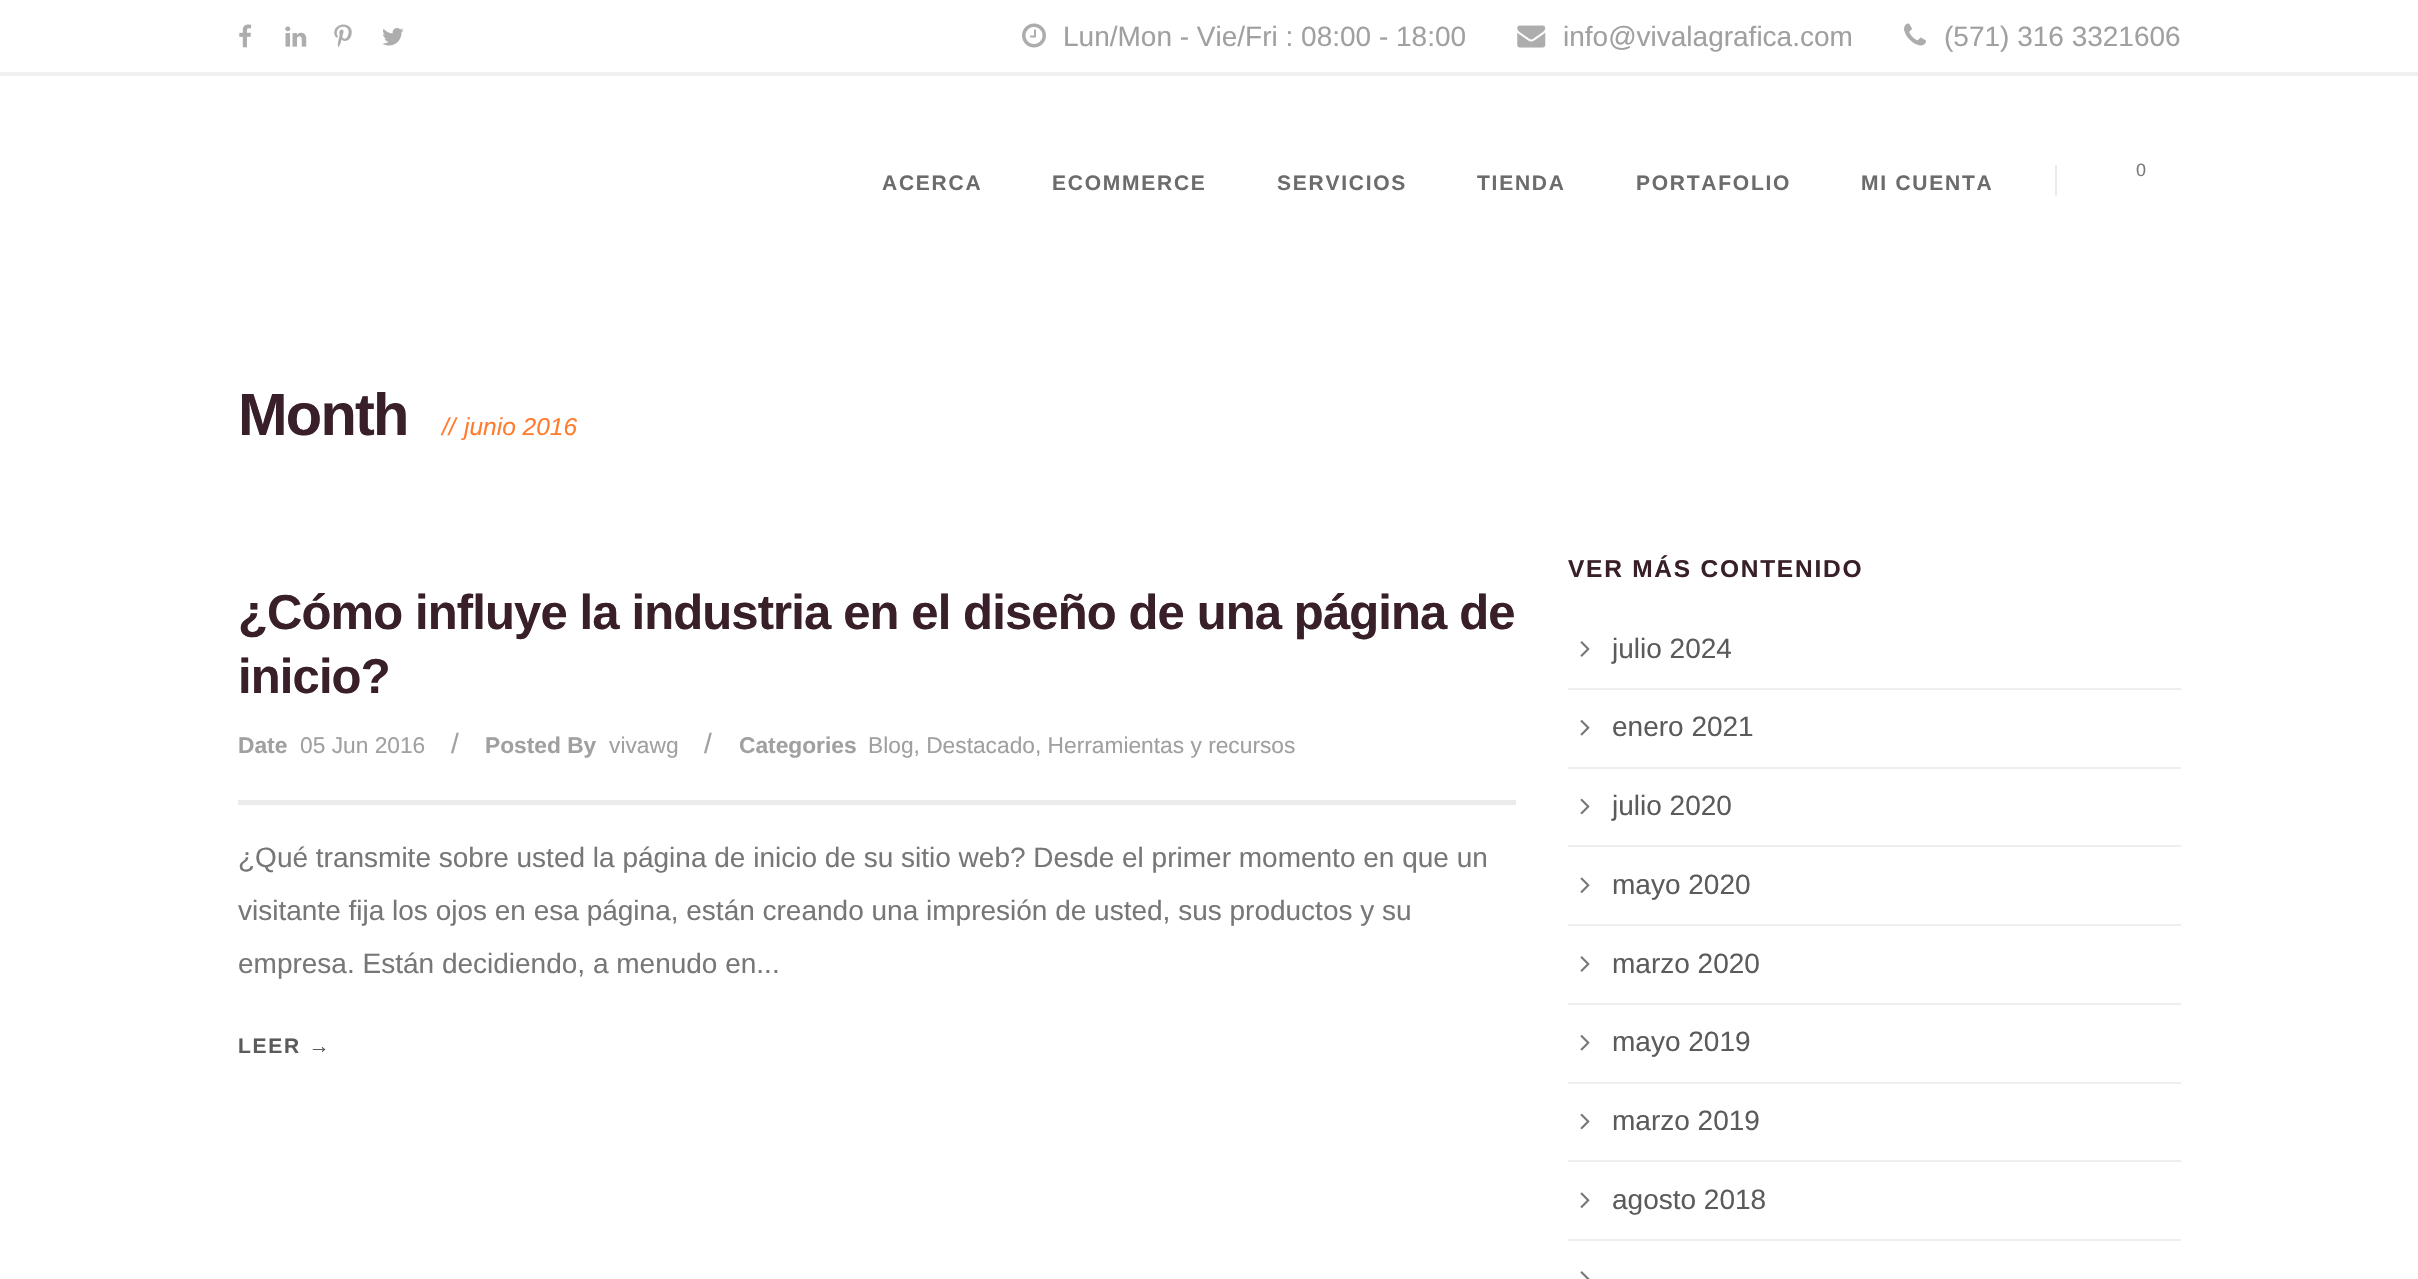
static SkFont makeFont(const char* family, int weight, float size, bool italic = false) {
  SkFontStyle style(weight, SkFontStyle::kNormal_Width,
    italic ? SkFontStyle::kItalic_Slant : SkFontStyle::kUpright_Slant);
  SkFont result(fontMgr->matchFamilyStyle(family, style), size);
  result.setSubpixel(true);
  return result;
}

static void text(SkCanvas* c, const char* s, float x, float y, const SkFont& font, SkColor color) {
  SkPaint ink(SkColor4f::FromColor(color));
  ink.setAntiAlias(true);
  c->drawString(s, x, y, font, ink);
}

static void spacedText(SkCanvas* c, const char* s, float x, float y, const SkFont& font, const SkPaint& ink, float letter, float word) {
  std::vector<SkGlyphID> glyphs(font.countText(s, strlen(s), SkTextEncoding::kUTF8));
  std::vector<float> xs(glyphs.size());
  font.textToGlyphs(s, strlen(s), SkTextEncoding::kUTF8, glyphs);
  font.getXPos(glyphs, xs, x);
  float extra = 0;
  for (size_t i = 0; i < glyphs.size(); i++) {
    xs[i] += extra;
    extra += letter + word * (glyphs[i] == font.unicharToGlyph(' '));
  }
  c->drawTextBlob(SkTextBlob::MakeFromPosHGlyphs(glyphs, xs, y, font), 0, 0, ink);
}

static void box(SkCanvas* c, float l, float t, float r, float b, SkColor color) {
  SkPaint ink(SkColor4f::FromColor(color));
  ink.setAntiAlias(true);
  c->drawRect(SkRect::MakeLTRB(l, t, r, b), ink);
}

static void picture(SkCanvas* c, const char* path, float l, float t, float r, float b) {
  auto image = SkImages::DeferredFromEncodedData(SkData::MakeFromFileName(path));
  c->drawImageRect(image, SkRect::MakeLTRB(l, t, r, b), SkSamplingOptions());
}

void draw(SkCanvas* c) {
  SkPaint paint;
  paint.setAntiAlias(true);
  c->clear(0xffffffff);
  box(c, 0, 72, 2418, 76, 0xfff0f0f0);
  picture(c, "img_01.png", 239, 24, 252, 48);
  picture(c, "img_02.png", 285, 26, 307, 47);
  picture(c, "img_03.png", 334, 24, 352, 48);
  picture(c, "img_04.png", 382, 28, 404, 46);
  picture(c, "img_05.png", 1022, 23, 1046, 48);
  SkFont face1 = makeFont("Liberation Sans", 400, 28);
  text(c, "Lun/Mon - Vie/Fri : 08:00 - 18:00", 1063, 46, face1, 0xffa0a0a0);
  picture(c, "img_06.png", 1517, 25, 1546, 48);
  text(c, "info@vivalagrafica.com", 1563, 46, face1, 0xffa0a0a0);
  picture(c, "img_07.png", 1904, 23, 1926, 46);
  text(c, "(571) 316 3321606", 1944, 46, face1, 0xffa0a0a0);
  SkFont face2 = makeFont("Liberation Sans", 700, 21);
  paint.setColor(0xff6c6c6c);
  spacedText(c, "ACERCA", 882, 190, face2, paint, 1.75f, 0);
  spacedText(c, "ECOMMERCE", 1052, 190, face2, paint, 1.75f, 0);
  spacedText(c, "SERVICIOS", 1277, 190, face2, paint, 1.75f, 0);
  spacedText(c, "TIENDA", 1477, 190, face2, paint, 1.75f, 0);
  spacedText(c, "PORTAFOLIO", 1636, 190, face2, paint, 1.75f, 0);
  spacedText(c, "MI CUENTA", 1861, 190, face2, paint, 1.75f, 0);
  box(c, 2055, 165, 2057, 196, 0xffebebeb);
  SkFont face3 = makeFont("Liberation Sans", 400, 18);
  text(c, "0", 2136, 176, face3, 0xff777777);
  SkFont face4 = makeFont("Liberation Sans", 700, 59.5f);
  paint.setColor(0xff381f29);
  spacedText(c, "Month", 238, 435, face4, paint, -1.75f, 0);
  SkFont face5 = makeFont("Liberation Sans", 400, 24.5f, true);
  text(c, "//", 442, 435, face5, 0xffff7c2e);
  text(c, "junio 2016", 464, 435, face5, 0xffff7c2e);
  box(c, 238, 800, 1516, 805, 0xffebebeb);
  SkFont face6 = makeFont("Liberation Sans", 700, 49);
  spacedText(c, "¿Cómo influye la industria en el diseño de una página de", 238, 629, face6, paint, -0.88f, 0);
  spacedText(c, "inicio?", 238, 693, face6, paint, -0.88f, 0);
  SkFont face7 = makeFont("Liberation Sans", 700, 22.75f);
  text(c, "Date", 238, 753, face7, 0xffa0a0a0);
  SkFont face8 = makeFont("Liberation Sans", 400, 22.75f);
  text(c, "05 Jun 2016", 300, 753, face8, 0xffa0a0a0);
  text(c, "/", 451, 753, face1, 0xffa0a0a0);
  text(c, "Posted By", 485, 753, face7, 0xffa0a0a0);
  text(c, "vivawg", 609, 753, face8, 0xffa0a0a0);
  text(c, "/", 704, 753, face1, 0xffa0a0a0);
  text(c, "Categories", 739, 753, face7, 0xffa0a0a0);
  text(c, "Blog, Destacado, Herramientas y recursos", 868, 753, face8, 0xffa0a0a0);
  text(c, "¿Qué transmite sobre usted la página de inicio de su sitio web? Desde el primer momento en que un", 238, 867, face1, 0xff777777);
  text(c, "visitante fija los ojos en esa página, están creando una impresión de usted, sus productos y su", 238, 920, face1, 0xff777777);
  text(c, "empresa. Están decidiendo, a menudo en...", 238, 973, face1, 0xff777777);
  paint.setColor(0xff5b5b5b);
  spacedText(c, "LEER →", 238, 1053, face2, paint, 1.75f, 0);
  SkFont face9 = makeFont("Liberation Sans", 700, 24.5f);
  paint.setColor(0xff381f29);
  spacedText(c, "VER MÁS CONTENIDO", 1568, 577, face9, paint, 1.75f, 0);
  box(c, 1568, 688, 2181, 690, 0xffeeeeee);
  picture(c, "img_08.png", 1580, 641, 1590, 657);
  text(c, "julio 2024", 1612, 658, face1, 0xff5b5b5b);
  box(c, 1568, 767, 2181, 769, 0xffeeeeee);
  picture(c, "img_09.png", 1580, 720, 1590, 736);
  text(c, "enero 2021", 1612, 736, face1, 0xff5b5b5b);
  box(c, 1568, 845, 2181, 847, 0xffeeeeee);
  picture(c, "img_10.png", 1580, 798, 1590, 815);
  text(c, "julio 2020", 1612, 815, face1, 0xff5b5b5b);
  box(c, 1568, 924, 2181, 926, 0xffeeeeee);
  picture(c, "img_11.png", 1580, 877, 1590, 893);
  text(c, "mayo 2020", 1612, 894, face1, 0xff5b5b5b);
  box(c, 1568, 1003, 2181, 1005, 0xffeeeeee);
  picture(c, "img_08.png", 1580, 956, 1590, 972);
  text(c, "marzo 2020", 1612, 973, face1, 0xff5b5b5b);
  box(c, 1568, 1082, 2181, 1084, 0xffeeeeee);
  picture(c, "img_09.png", 1580, 1035, 1590, 1051);
  text(c, "mayo 2019", 1612, 1051, face1, 0xff5b5b5b);
  box(c, 1568, 1160, 2181, 1162, 0xffeeeeee);
  picture(c, "img_10.png", 1580, 1113, 1590, 1130);
  text(c, "marzo 2019", 1612, 1130, face1, 0xff5b5b5b);
  box(c, 1568, 1239, 2181, 1241, 0xffeeeeee);
  picture(c, "img_11.png", 1580, 1192, 1590, 1208);
  text(c, "agosto 2018", 1612, 1209, face1, 0xff5b5b5b);
  picture(c, "img_12.png", 1580, 1271, 1590, 1279);
}
